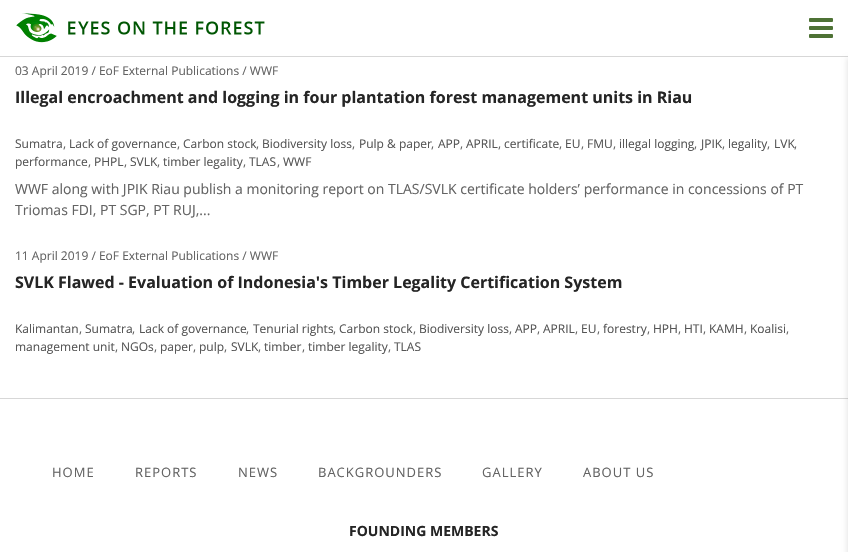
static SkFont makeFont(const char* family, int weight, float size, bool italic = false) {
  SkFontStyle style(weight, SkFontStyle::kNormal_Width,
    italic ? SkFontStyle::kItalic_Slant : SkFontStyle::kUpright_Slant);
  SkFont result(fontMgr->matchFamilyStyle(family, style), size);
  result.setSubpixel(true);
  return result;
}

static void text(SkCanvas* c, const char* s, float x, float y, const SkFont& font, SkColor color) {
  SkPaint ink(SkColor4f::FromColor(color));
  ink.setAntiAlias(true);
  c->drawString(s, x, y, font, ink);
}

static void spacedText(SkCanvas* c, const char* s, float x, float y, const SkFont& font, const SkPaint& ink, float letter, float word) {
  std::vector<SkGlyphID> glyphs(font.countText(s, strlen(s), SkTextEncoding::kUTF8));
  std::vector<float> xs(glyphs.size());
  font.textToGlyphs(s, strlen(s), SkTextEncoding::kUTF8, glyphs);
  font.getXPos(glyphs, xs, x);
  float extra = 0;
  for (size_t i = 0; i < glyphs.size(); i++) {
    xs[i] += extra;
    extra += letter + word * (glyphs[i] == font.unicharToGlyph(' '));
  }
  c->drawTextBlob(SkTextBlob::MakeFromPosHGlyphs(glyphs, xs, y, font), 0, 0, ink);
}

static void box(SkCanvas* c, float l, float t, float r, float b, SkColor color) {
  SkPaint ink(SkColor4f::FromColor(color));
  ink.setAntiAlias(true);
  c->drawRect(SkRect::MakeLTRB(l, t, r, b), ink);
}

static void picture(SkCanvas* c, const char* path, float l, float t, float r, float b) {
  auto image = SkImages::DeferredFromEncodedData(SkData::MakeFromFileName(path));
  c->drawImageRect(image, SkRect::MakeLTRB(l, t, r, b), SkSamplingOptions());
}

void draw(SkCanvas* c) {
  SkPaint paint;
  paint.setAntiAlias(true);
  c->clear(0xffffffff);
  box(c, 0, 56, 848, 57, 0xffd7d7d7);
  picture(c, "img_01.png", 16, 13, 265, 43);
  picture(c, "img_02.png", 809, 18, 833, 38);
  box(c, 0, 398, 848, 399, 0xffd7d7d7);
  paint.setColor(0x1a000000);
  paint.setMaskFilter(SkMaskFilter::MakeBlur(kNormal_SkBlurStyle, 2.5f));
  c->drawRect(SkRect::MakeLTRB(847, 58, 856, 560), paint);
  paint.setMaskFilter(nullptr);
  SkFont face1 = makeFont("Open Sans", 400, 12);
  text(c, "03 April 2019 / EoF External Publications / WWF", 15, 75, face1, 0xff636363);
  SkFont face2 = makeFont("Open Sans", 700, 16);
  text(c, "Illegal encroachment and logging in four plantation forest management units in Riau", 15, 103, face2, 0xff252525);
  text(c, "Sumatra", 15, 148, face1, 0xff555555);
  text(c, ",", 63, 148, face1, 0xff636363);
  text(c, "Lack of governance", 69, 148, face1, 0xff555555);
  text(c, ",", 177, 148, face1, 0xff636363);
  text(c, "Carbon stock", 183, 148, face1, 0xff555555);
  text(c, ",", 256, 148, face1, 0xff636363);
  text(c, "Biodiversity loss", 262, 148, face1, 0xff555555);
  text(c, ",", 352, 148, face1, 0xff636363);
  text(c, "Pulp & paper", 359, 148, face1, 0xff555555);
  text(c, ",", 431, 148, face1, 0xff636363);
  text(c, "APP", 438, 148, face1, 0xff555555);
  text(c, ",", 460, 148, face1, 0xff636363);
  text(c, "APRIL", 466, 148, face1, 0xff555555);
  text(c, ",", 498, 148, face1, 0xff636363);
  text(c, "certificate", 504, 148, face1, 0xff555555);
  text(c, ",", 559, 148, face1, 0xff636363);
  text(c, "EU", 565, 148, face1, 0xff555555);
  text(c, ",", 581, 148, face1, 0xff636363);
  text(c, "FMU", 587, 148, face1, 0xff555555);
  text(c, ",", 613, 148, face1, 0xff636363);
  text(c, "illegal logging", 619, 148, face1, 0xff555555);
  text(c, ",", 694, 148, face1, 0xff636363);
  text(c, "JPIK", 701, 148, face1, 0xff555555);
  text(c, ",", 722, 148, face1, 0xff636363);
  text(c, "legality", 728, 148, face1, 0xff555555);
  text(c, ",", 767, 148, face1, 0xff636363);
  text(c, "LVK", 774, 148, face1, 0xff555555);
  text(c, ",", 794, 148, face1, 0xff636363);
  text(c, "performance", 15, 166, face1, 0xff555555);
  text(c, ",", 88, 166, face1, 0xff636363);
  text(c, "PHPL", 94, 166, face1, 0xff555555);
  text(c, ",", 124, 166, face1, 0xff636363);
  text(c, "SVLK", 130, 166, face1, 0xff555555);
  text(c, ",", 157, 166, face1, 0xff636363);
  text(c, "timber legality", 163, 166, face1, 0xff555555);
  text(c, ",", 243, 166, face1, 0xff636363);
  text(c, "TLAS", 249, 166, face1, 0xff555555);
  text(c, ",", 277, 166, face1, 0xff636363);
  text(c, "WWF", 283, 166, face1, 0xff555555);
  SkFont face3 = makeFont("Open Sans", 400, 14);
  text(c, "WWF along with JPIK Riau publish a monitoring report on TLAS/SVLK certificate holders’ performance in concessions of PT", 15, 194, face3, 0xff636363);
  text(c, "Triomas FDI, PT SGP, PT RUJ,...", 15, 215, face3, 0xff636363);
  text(c, "11 April 2019 / EoF External Publications / WWF", 15, 260, face1, 0xff636363);
  text(c, "SVLK Flawed - Evaluation of Indonesia's Timber Legality Certification System", 15, 288, face2, 0xff252525);
  text(c, "Kalimantan", 15, 333, face1, 0xff555555);
  text(c, ",", 79, 333, face1, 0xff636363);
  text(c, "Sumatra", 85, 333, face1, 0xff555555);
  text(c, ",", 132, 333, face1, 0xff636363);
  text(c, "Lack of governance", 139, 333, face1, 0xff555555);
  text(c, ",", 246, 333, face1, 0xff636363);
  text(c, "Tenurial rights", 253, 333, face1, 0xff555555);
  text(c, ",", 333, 333, face1, 0xff636363);
  text(c, "Carbon stock", 339, 333, face1, 0xff555555);
  text(c, ",", 413, 333, face1, 0xff636363);
  text(c, "Biodiversity loss", 419, 333, face1, 0xff555555);
  text(c, ",", 509, 333, face1, 0xff636363);
  text(c, "APP", 515, 333, face1, 0xff555555);
  text(c, ",", 537, 333, face1, 0xff636363);
  text(c, "APRIL", 543, 333, face1, 0xff555555);
  text(c, ",", 575, 333, face1, 0xff636363);
  text(c, "EU", 581, 333, face1, 0xff555555);
  text(c, ",", 597, 333, face1, 0xff636363);
  text(c, "forestry", 603, 333, face1, 0xff555555);
  text(c, ",", 647, 333, face1, 0xff636363);
  text(c, "HPH", 653, 333, face1, 0xff555555);
  text(c, ",", 678, 333, face1, 0xff636363);
  text(c, "HTI", 684, 333, face1, 0xff555555);
  text(c, ",", 703, 333, face1, 0xff636363);
  text(c, "KAMH", 709, 333, face1, 0xff555555);
  text(c, ",", 744, 333, face1, 0xff636363);
  text(c, "Koalisi", 750, 333, face1, 0xff555555);
  text(c, ",", 786, 333, face1, 0xff636363);
  text(c, "management unit", 15, 351, face1, 0xff555555);
  text(c, ",", 115, 351, face1, 0xff636363);
  text(c, "NGOs", 121, 351, face1, 0xff555555);
  text(c, ",", 154, 351, face1, 0xff636363);
  text(c, "paper", 160, 351, face1, 0xff555555);
  text(c, ",", 193, 351, face1, 0xff636363);
  text(c, "pulp", 199, 351, face1, 0xff555555);
  text(c, ",", 224, 351, face1, 0xff636363);
  text(c, "SVLK", 231, 351, face1, 0xff555555);
  text(c, ",", 258, 351, face1, 0xff636363);
  text(c, "timber", 264, 351, face1, 0xff555555);
  text(c, ",", 302, 351, face1, 0xff636363);
  text(c, "timber legality", 308, 351, face1, 0xff555555);
  text(c, ",", 388, 351, face1, 0xff636363);
  text(c, "TLAS", 394, 351, face1, 0xff555555);
  SkFont face4 = makeFont("Open Sans", 400, 13);
  paint.setColor(0xff636363);
  spacedText(c, "HOME", 52, 477, face4, paint, 1, 0);
  spacedText(c, "REPORTS", 135, 477, face4, paint, 1, 0);
  spacedText(c, "NEWS", 238, 477, face4, paint, 1, 0);
  spacedText(c, "BACKGROUNDERS", 318, 477, face4, paint, 1, 0);
  spacedText(c, "GALLERY", 482, 477, face4, paint, 1, 0);
  spacedText(c, "ABOUT US", 583, 477, face4, paint, 1, 0);
  SkFont face5 = makeFont("Open Sans", 700, 14);
  text(c, "FOUNDING MEMBERS", 349, 536, face5, 0xff252525);
}
